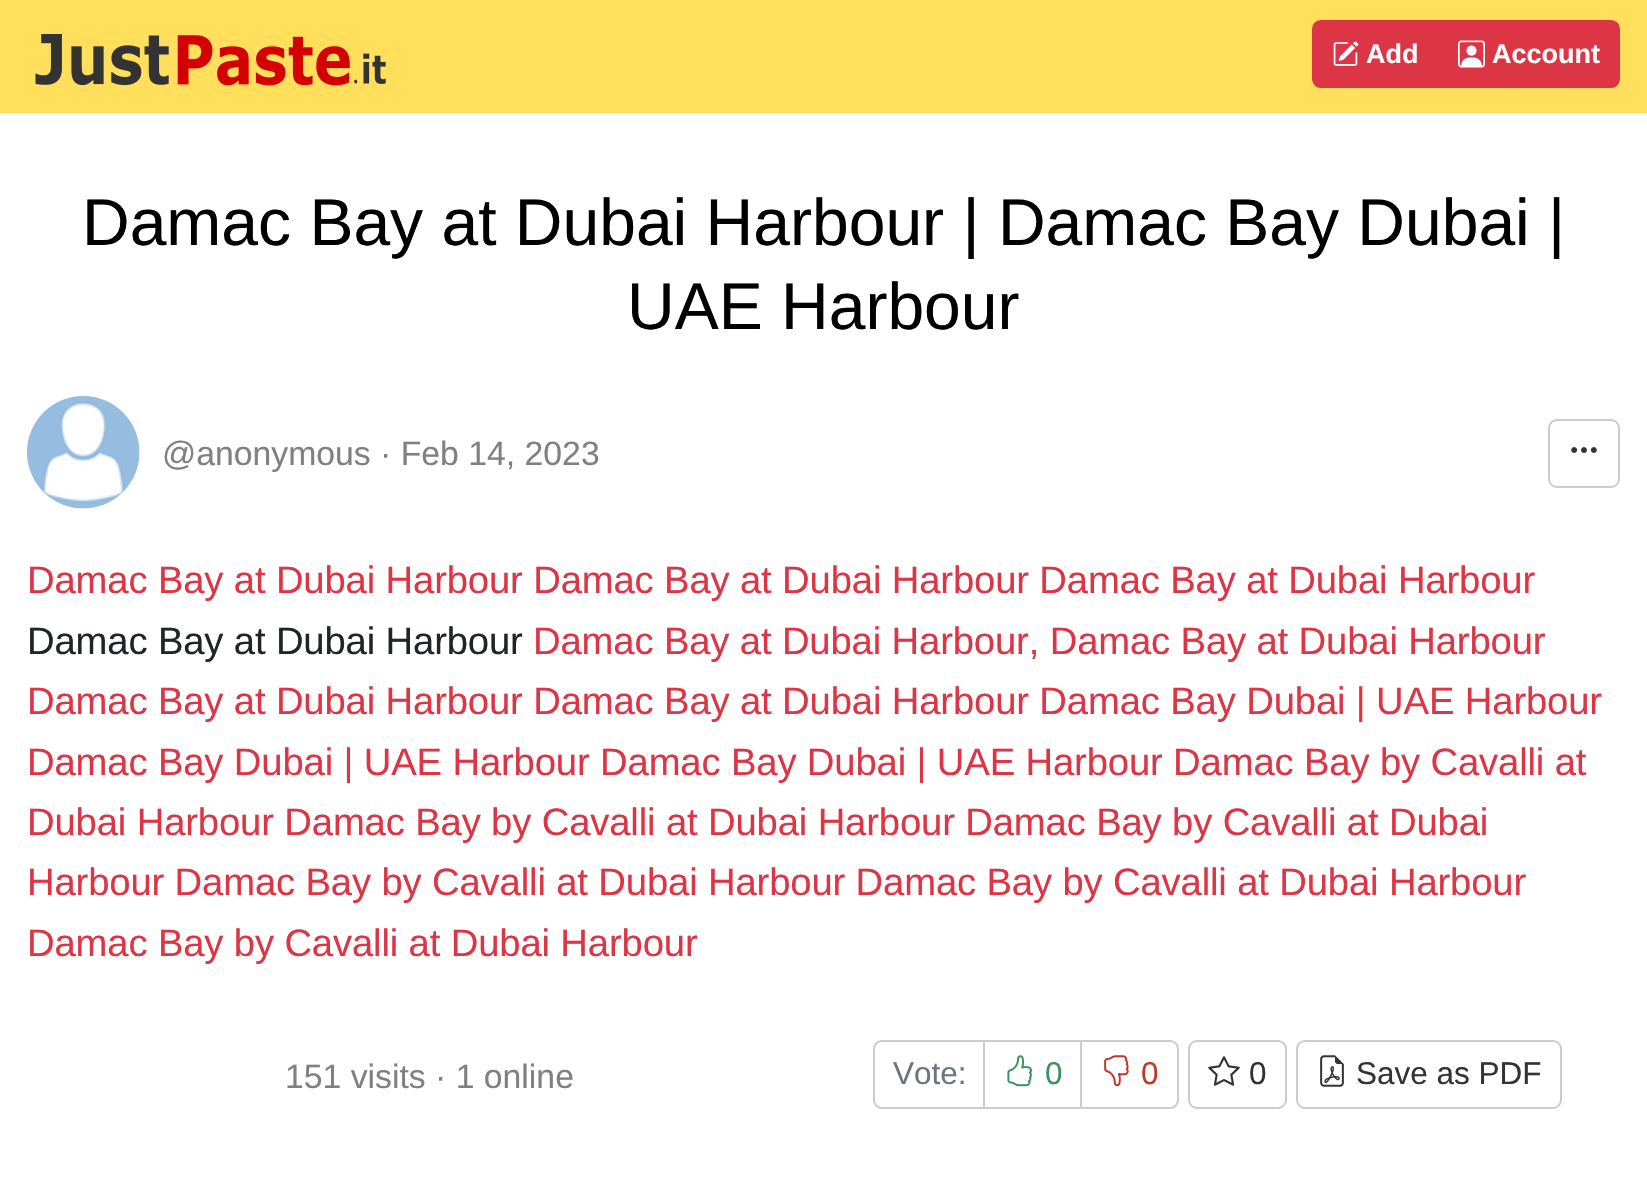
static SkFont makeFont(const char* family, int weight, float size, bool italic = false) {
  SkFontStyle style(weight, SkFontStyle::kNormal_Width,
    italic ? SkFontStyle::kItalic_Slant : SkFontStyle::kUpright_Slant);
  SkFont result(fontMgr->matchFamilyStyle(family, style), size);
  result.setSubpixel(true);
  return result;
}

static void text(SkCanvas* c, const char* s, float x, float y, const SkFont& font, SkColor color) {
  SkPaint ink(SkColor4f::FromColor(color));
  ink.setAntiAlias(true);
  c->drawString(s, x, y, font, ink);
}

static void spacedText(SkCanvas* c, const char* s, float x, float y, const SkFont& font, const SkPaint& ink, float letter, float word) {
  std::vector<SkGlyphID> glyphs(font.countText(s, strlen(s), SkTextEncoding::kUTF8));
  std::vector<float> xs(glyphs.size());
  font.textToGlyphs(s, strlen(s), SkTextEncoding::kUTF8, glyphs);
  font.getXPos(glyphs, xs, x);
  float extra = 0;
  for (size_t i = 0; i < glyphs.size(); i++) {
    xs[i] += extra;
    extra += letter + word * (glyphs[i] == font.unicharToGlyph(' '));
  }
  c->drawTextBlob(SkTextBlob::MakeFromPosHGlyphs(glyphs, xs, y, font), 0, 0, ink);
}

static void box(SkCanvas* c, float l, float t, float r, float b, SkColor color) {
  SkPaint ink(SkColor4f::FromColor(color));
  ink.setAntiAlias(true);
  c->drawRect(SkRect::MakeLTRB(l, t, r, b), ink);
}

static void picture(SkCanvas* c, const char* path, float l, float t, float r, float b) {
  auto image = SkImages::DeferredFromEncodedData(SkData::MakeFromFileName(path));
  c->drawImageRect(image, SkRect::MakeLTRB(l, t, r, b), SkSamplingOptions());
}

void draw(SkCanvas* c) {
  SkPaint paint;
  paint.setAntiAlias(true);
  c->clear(0xffffffff);
  box(c, 0, 0, 1647, 113, 0xffffdf5c);
  picture(c, "img_01.png", 35, 34, 386, 86);
  paint.setColor(0xffdc3545);
  c->drawPath(SkPathBuilder().moveTo(1321, 21).lineTo(1439, 21).lineTo(1439, 87).lineTo(1321, 87).cubicTo(1316.5f, 87, 1313, 83.5f, 1313, 79).lineTo(1313, 29).cubicTo(1313, 24.5f, 1316.5f, 21, 1321, 21).close().detach(), paint);
  paint.setStyle(SkPaint::kStroke_Style);
  paint.setStrokeWidth(2);
  c->drawPath(SkPathBuilder().moveTo(1321, 21).lineTo(1439, 21).lineTo(1439, 87).lineTo(1321, 87).cubicTo(1316.5f, 87, 1313, 83.5f, 1313, 79).lineTo(1313, 29).cubicTo(1313, 24.5f, 1316.5f, 21, 1321, 21).close().detach(), paint);
  picture(c, "img_02.png", 1333, 41, 1359, 66);
  SkFont face1 = makeFont("Liberation Sans", 700, 27);
  text(c, "Add", 1366, 63, face1, 0xffffffff);
  paint.setStyle(SkPaint::kFill_Style);
  c->drawPath(SkPathBuilder().moveTo(1439, 21).lineTo(1611, 21).cubicTo(1615.5f, 21, 1619, 24.5f, 1619, 29).lineTo(1619, 79).cubicTo(1619, 83.5f, 1615.5f, 87, 1611, 87).lineTo(1439, 87).close().detach(), paint);
  paint.setStyle(SkPaint::kStroke_Style);
  c->drawPath(SkPathBuilder().moveTo(1439, 21).lineTo(1611, 21).cubicTo(1615.5f, 21, 1619, 24.5f, 1619, 29).lineTo(1619, 79).cubicTo(1619, 83.5f, 1615.5f, 87, 1611, 87).lineTo(1439, 87).close().detach(), paint);
  picture(c, "img_03.png", 1458, 40, 1485, 68);
  text(c, "Account", 1492, 63, face1, 0xffffffff);
  SkFont face2 = makeFont("Liberation Sans", 400, 66);
  text(c, "Damac Bay at Dubai Harbour | Damac Bay Dubai |", 82, 245, face2, 0xff000000);
  text(c, "UAE Harbour", 627, 329, face2, 0xff000000);
  picture(c, "img_04.png", 27, 396, 140, 509);
  SkFont face3 = makeFont("Liberation Sans", 400, 33.75f);
  text(c, "@anonymous · Feb 14, 2023", 162, 465, face3, 0xff808080);
  paint.setColor(0xffcccccc);
  c->drawRoundRect(SkRect::MakeLTRB(1549, 420, 1619, 487), 8, 8, paint);
  picture(c, "img_05.png", 1571, 447, 1597, 453);
  SkFont face4 = makeFont("Liberation Sans", 400, 38.25f);
  paint.setStyle(SkPaint::kFill_Style);
  paint.setColor(0xffdc3545);
  spacedText(c, "Damac Bay at Dubai Harbour Damac Bay at Dubai Harbour Damac Bay at Dubai Harbour", 27, 593, face4, paint, -0.15f, 0);
  paint.setColor(0xff212529);
  spacedText(c, "Damac Bay at Dubai Harbour", 27, 654, face4, paint, -0.15f, 0);
  paint.setColor(0xffdc3545);
  spacedText(c, "Damac Bay at Dubai Harbour, Damac Bay at Dubai Harbour", 533, 654, face4, paint, -0.15f, 0);
  spacedText(c, "Damac Bay at Dubai Harbour Damac Bay at Dubai Harbour Damac Bay Dubai | UAE Harbour", 27, 714, face4, paint, -0.15f, 0);
  spacedText(c, "Damac Bay Dubai | UAE Harbour Damac Bay Dubai | UAE Harbour Damac Bay by Cavalli at", 27, 775, face4, paint, -0.15f, 0);
  spacedText(c, "Dubai Harbour Damac Bay by Cavalli at Dubai Harbour Damac Bay by Cavalli at Dubai", 27, 835, face4, paint, -0.15f, 0);
  spacedText(c, "Harbour Damac Bay by Cavalli at Dubai Harbour Damac Bay by Cavalli at Dubai Harbour", 27, 895, face4, paint, -0.15f, 0);
  spacedText(c, "Damac Bay by Cavalli at Dubai Harbour", 27, 956, face4, paint, -0.15f, 0);
  text(c, "151 visits · 1 online", 285, 1088, face3, 0xff808080);
  paint.setStyle(SkPaint::kStroke_Style);
  paint.setColor(0xffcccccc);
  c->drawPath(SkPathBuilder().moveTo(882, 1041).lineTo(985, 1041).lineTo(985, 1108).lineTo(882, 1108).cubicTo(877.5f, 1108, 874, 1104.5f, 874, 1100).lineTo(874, 1049).cubicTo(874, 1044.5f, 877.5f, 1041, 882, 1041).close().detach(), paint);
  SkFont face5 = makeFont("Liberation Sans", 400, 31.5f);
  text(c, "Vote:", 893, 1084, face5, 0xff6c757d);
  box(c, 985, 1042, 986, 1107, 0xffffffff);
  c->drawRect(SkRect::MakeLTRB(984, 1041, 1081, 1108), paint);
  picture(c, "img_06.png", 1007, 1055, 1032, 1087);
  text(c, "0", 1045, 1084, face5, 0xff3b915f);
  paint.setStyle(SkPaint::kFill_Style);
  paint.setColor(0xffffffff);
  c->drawPath(SkPathBuilder().moveTo(1081, 1041).lineTo(1170, 1041).cubicTo(1174.5f, 1041, 1178, 1044.5f, 1178, 1049).lineTo(1178, 1100).cubicTo(1178, 1104.5f, 1174.5f, 1108, 1170, 1108).lineTo(1081, 1108).close().detach(), paint);
  paint.setStyle(SkPaint::kStroke_Style);
  paint.setColor(0xffcccccc);
  c->drawPath(SkPathBuilder().moveTo(1081, 1041).lineTo(1170, 1041).cubicTo(1174.5f, 1041, 1178, 1044.5f, 1178, 1049).lineTo(1178, 1100).cubicTo(1178, 1104.5f, 1174.5f, 1108, 1170, 1108).lineTo(1081, 1108).close().detach(), paint);
  picture(c, "img_07.png", 1104, 1055, 1129, 1087);
  text(c, "0", 1141, 1084, face5, 0xffc0382b);
  c->drawRoundRect(SkRect::MakeLTRB(1189, 1041, 1286, 1108), 8, 8, paint);
  picture(c, "img_08.png", 1208, 1056, 1240, 1086);
  text(c, "0", 1249, 1084, face5, 0xff333333);
  c->drawRoundRect(SkRect::MakeLTRB(1297, 1041, 1561, 1108), 8, 8, paint);
  picture(c, "img_09.png", 1320, 1055, 1344, 1087);
  text(c, "Save as PDF", 1356, 1084, face5, 0xff333333);
}
